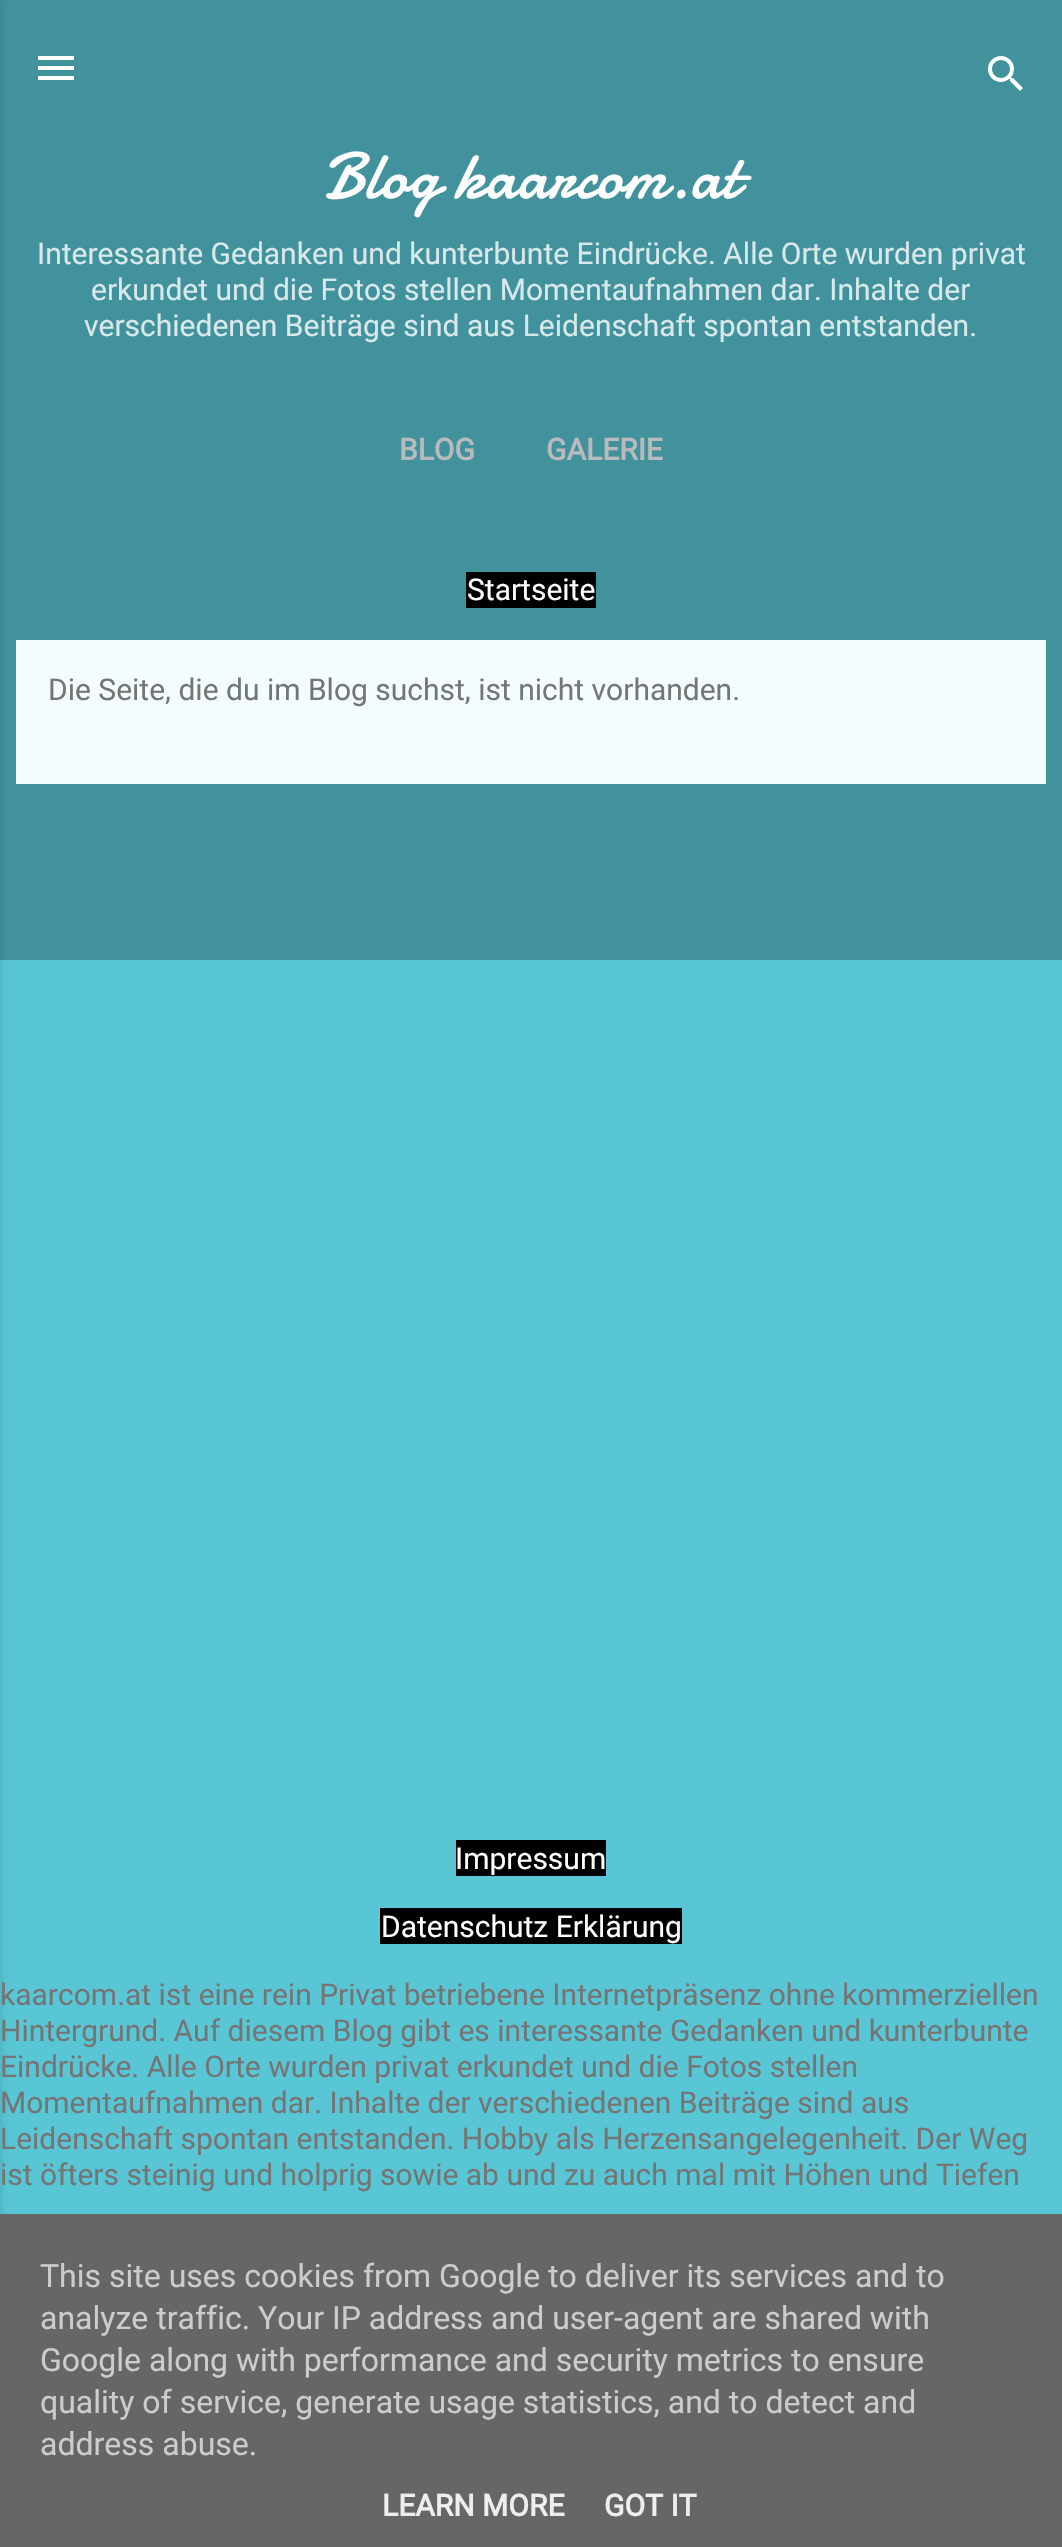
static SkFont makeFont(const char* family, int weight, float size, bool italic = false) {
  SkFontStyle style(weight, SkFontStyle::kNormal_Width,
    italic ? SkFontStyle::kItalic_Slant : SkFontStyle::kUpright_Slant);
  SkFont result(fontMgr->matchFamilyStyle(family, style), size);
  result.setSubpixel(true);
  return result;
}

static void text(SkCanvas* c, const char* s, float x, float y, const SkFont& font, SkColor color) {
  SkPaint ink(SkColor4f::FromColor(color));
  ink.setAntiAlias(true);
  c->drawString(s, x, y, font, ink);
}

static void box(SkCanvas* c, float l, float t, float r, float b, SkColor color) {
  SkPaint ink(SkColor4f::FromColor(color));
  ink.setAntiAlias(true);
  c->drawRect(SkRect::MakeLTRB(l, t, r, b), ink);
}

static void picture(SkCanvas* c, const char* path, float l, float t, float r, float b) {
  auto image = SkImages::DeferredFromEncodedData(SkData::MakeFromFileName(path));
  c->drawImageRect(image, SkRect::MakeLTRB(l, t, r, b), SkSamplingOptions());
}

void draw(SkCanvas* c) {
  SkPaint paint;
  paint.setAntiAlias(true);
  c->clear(0xff58c6d5);
  box(c, 0, 0, 1062, 960, 0xff41929d);
  paint.setColor(0x1a000000);
  paint.setMaskFilter(SkMaskFilter::MakeBlur(kNormal_SkBlurStyle, 3));
  c->drawRect(SkRect::MakeLTRB(-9, 2, 2, 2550), paint);
  paint.setMaskFilter(nullptr);
  picture(c, "img_01.png", 38, 56, 74, 80);
  picture(c, "img_02.png", 988, 56, 1023, 91);
  SkFont face1 = makeFont("Damion", 400, 66);
  text(c, "Blog kaarcom.at", 323, 198, face1, 0xffffffff);
  SkFont face2 = makeFont("Roboto", 400, 30);
  text(c, "Interessante Gedanken und kunterbunte Eindrücke. Alle Orte wurden privat", 37, 264, face2, 0xffd9e9eb);
  text(c, "erkundet und die Fotos stellen Momentaufnahmen dar. Inhalte der", 91, 300, face2, 0xffd9e9eb);
  text(c, "verschiedenen Beiträge sind aus Leidenschaft spontan entstanden.", 84, 336, face2, 0xffd9e9eb);
  SkFont face3 = makeFont("Roboto", 700, 30);
  text(c, "BLOG", 399, 460, face3, 0xffb8babb);
  text(c, "GALERIE", 546, 460, face3, 0xffb8babb);
  box(c, 466, 572, 596, 608, 0xff000000);
  text(c, "Startseite", 467, 600, face2, 0xffffffff);
  box(c, 16, 640, 1046, 784, 0xfff3fdfe);
  text(c, "Die Seite, die du im Blog suchst, ist nicht vorhanden.", 48, 700, face2, 0xff757575);
  box(c, 456, 1840, 606, 1876, 0xff000000);
  text(c, "Impressum", 455, 1869, face2, 0xffffffff);
  box(c, 380, 1908, 682, 1944, 0xff000000);
  text(c, "Datenschutz Erklärung", 381, 1937, face2, 0xffffffff);
  text(c, "kaarcom.at ist eine rein Privat betriebene Internetpräsenz ohne kommerziellen", 0, 2005, face2, 0xff757575);
  text(c, "Hintergrund. Auf diesem Blog gibt es interessante Gedanken und kunterbunte", 0, 2041, face2, 0xff757575);
  text(c, "Eindrücke. Alle Orte wurden privat erkundet und die Fotos stellen", 0, 2077, face2, 0xff757575);
  text(c, "Momentaufnahmen dar. Inhalte der verschiedenen Beiträge sind aus", 0, 2113, face2, 0xff757575);
  text(c, "Leidenschaft spontan entstanden. Hobby als Herzensangelegenheit. Der Weg", 0, 2149, face2, 0xff757575);
  text(c, "ist öfters steinig und holprig sowie ab und zu auch mal mit Höhen und Tiefen", 0, 2185, face2, 0xff757575);
  box(c, 0, 2214, 1062, 2547, 0xff666666);
  SkFont face4 = makeFont("Roboto", 400, 32);
  text(c, "This site uses cookies from Google to deliver its services and to", 40, 2287, face4, 0xffcccccc);
  text(c, "analyze traffic. Your IP address and user-agent are shared with", 40, 2329, face4, 0xffcccccc);
  text(c, "Google along with performance and security metrics to ensure", 40, 2371, face4, 0xffcccccc);
  text(c, "quality of service, generate usage statistics, and to detect and", 40, 2413, face4, 0xffcccccc);
  text(c, "address abuse.", 40, 2455, face4, 0xffcccccc);
  text(c, "LEARN MORE", 382, 2516, face3, 0xffeeeeee);
  text(c, "GOT IT", 604, 2516, face3, 0xffeeeeee);
}
